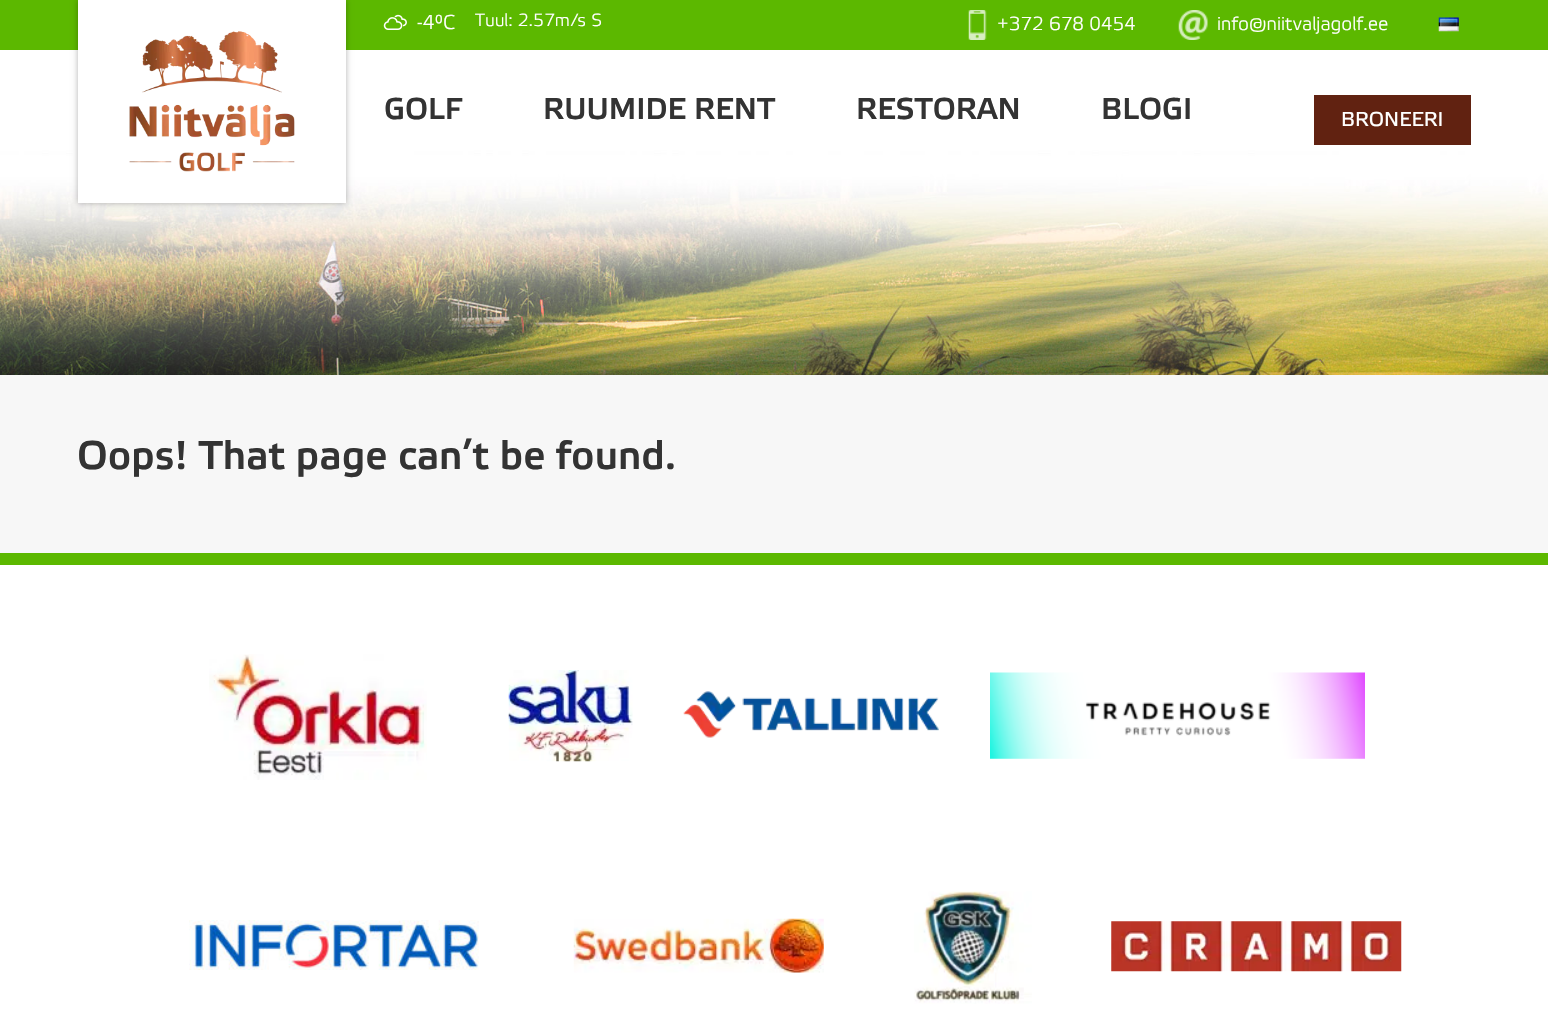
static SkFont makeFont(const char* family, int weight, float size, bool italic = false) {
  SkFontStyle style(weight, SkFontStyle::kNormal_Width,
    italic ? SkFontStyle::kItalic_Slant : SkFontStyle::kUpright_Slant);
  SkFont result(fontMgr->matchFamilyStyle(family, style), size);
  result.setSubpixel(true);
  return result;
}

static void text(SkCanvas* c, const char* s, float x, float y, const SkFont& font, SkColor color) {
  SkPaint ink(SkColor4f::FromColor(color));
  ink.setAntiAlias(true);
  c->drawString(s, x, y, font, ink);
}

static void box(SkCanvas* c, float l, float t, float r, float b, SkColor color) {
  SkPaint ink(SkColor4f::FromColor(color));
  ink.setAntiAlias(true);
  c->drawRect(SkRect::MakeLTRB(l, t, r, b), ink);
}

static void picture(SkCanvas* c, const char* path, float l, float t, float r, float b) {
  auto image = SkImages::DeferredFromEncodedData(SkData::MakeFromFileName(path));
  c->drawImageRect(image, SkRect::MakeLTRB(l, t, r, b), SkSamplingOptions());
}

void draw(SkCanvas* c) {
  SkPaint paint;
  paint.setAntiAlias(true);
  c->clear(0xfff7f7f7);
  box(c, 0, 0, 1548, 50, 0xff5cb800);
  picture(c, "img_06.png", 0, 50, 1548, 375);
  paint.setColor(0x4d000000);
  paint.setMaskFilter(SkMaskFilter::MakeBlur(kNormal_SkBlurStyle, 3));
  c->drawRect(SkRect::MakeLTRB(78, 0, 346, 203), paint);
  paint.setMaskFilter(nullptr);
  box(c, 78, 0, 346, 203, 0xffffffff);
  picture(c, "img_01.png", 129, 31, 295, 172);
  picture(c, "img_02.png", 383, 14, 407, 30);
  SkFont face1 = makeFont("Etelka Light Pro", 300, 20);
  text(c, "-4°C", 417, 29, face1, 0xffffffff);
  SkFont face2 = makeFont("Etelka Light Pro", 300, 17.5f);
  text(c, "Tuul: 2.57m/s S", 475, 26, face2, 0xffffffff);
  picture(c, "img_03.png", 968, 10, 987, 40);
  SkFont face3 = makeFont("Etelka Light Pro", 300, 18.75f);
  text(c, "+372 678 0454", 997, 30, face3, 0xffffffff);
  picture(c, "img_04.png", 1178, 10, 1208, 40);
  text(c, "info@niitvaljagolf.ee", 1217, 30, face3, 0xffffffff);
  picture(c, "img_05.png", 1438, 17, 1459, 32);
  SkFont face4 = makeFont("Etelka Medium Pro", 500, 30);
  text(c, "GOLF", 384, 119, face4, 0xff333333);
  text(c, "RUUMIDE RENT", 543, 119, face4, 0xff333333);
  text(c, "RESTORAN", 856, 119, face4, 0xff333333);
  text(c, "BLOGI", 1101, 119, face4, 0xff333333);
  box(c, 1314, 95, 1471, 145, 0xff612211);
  SkFont face5 = makeFont("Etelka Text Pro", 400, 20);
  text(c, "BRONEERI", 1341, 126, face5, 0xffffffff);
  SkFont face6 = makeFont("Etelka Medium Pro", 500, 40);
  text(c, "Oops! That page can’t be found.", 77, 469, face6, 0xff333333);
  box(c, 0, 553, 1548, 565, 0xff5cb800);
  box(c, 0, 565, 1548, 1032, 0xffffffff);
  picture(c, "img_07.png", 209, 654, 427, 780);
  picture(c, "img_08.png", 508, 670, 633, 762);
  picture(c, "img_09.png", 683, 691, 939, 738);
  picture(c, "img_10.png", 990, 672, 1365, 759);
  picture(c, "img_11.png", 189, 920, 479, 970);
  picture(c, "img_12.png", 573, 918, 824, 973);
  picture(c, "img_13.png", 914, 891, 1032, 1004);
  picture(c, "img_14.png", 1111, 921, 1402, 972);
}
